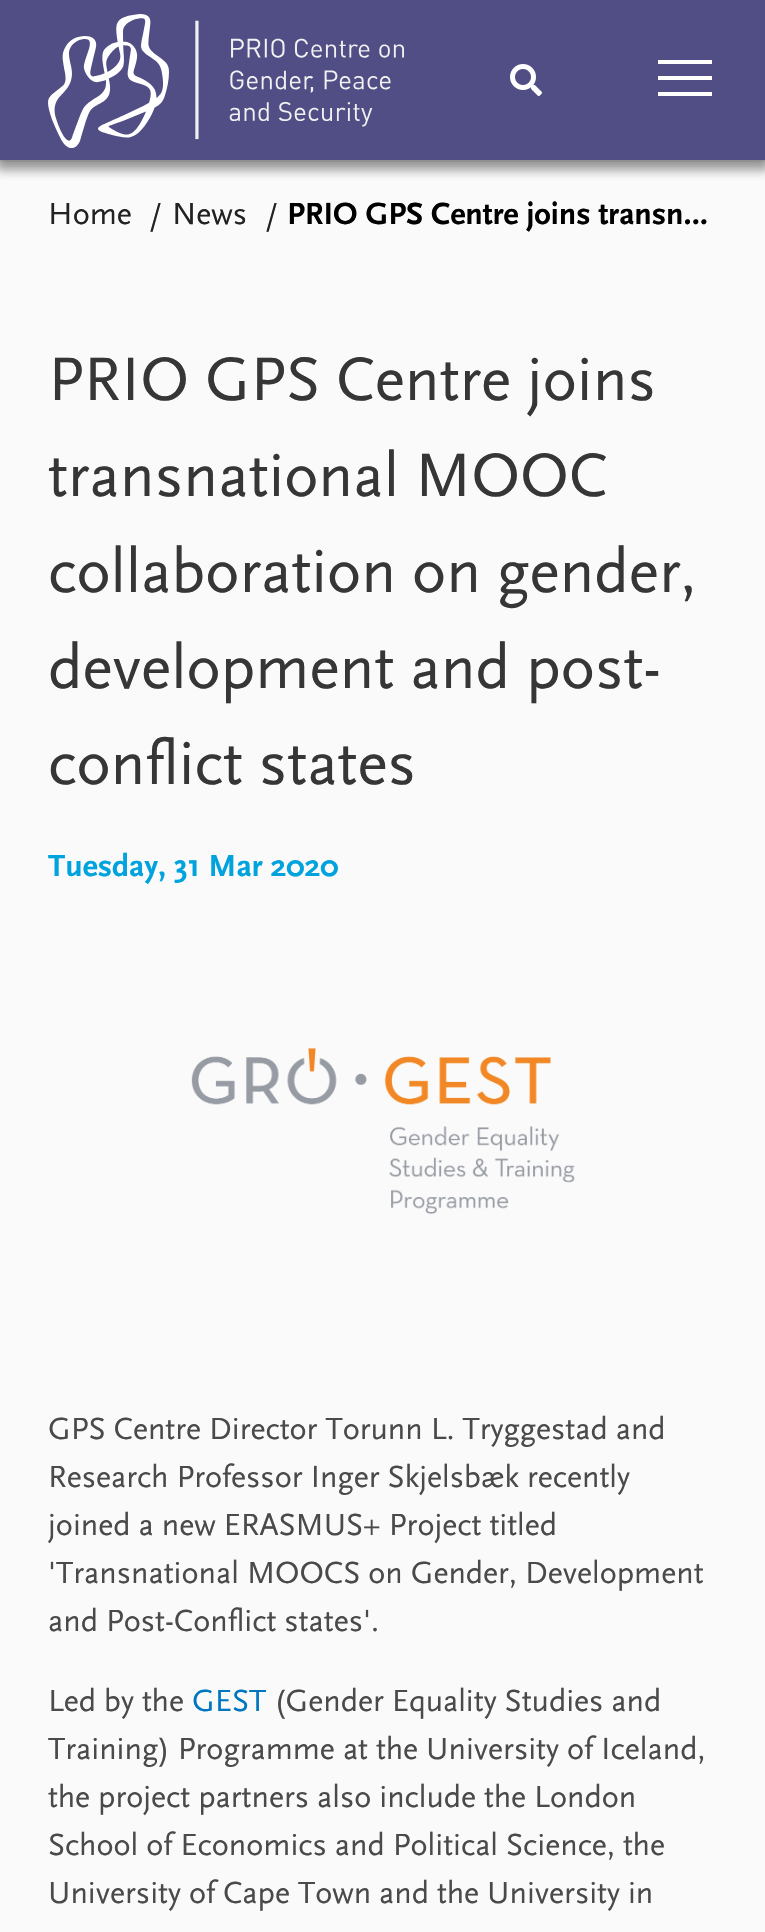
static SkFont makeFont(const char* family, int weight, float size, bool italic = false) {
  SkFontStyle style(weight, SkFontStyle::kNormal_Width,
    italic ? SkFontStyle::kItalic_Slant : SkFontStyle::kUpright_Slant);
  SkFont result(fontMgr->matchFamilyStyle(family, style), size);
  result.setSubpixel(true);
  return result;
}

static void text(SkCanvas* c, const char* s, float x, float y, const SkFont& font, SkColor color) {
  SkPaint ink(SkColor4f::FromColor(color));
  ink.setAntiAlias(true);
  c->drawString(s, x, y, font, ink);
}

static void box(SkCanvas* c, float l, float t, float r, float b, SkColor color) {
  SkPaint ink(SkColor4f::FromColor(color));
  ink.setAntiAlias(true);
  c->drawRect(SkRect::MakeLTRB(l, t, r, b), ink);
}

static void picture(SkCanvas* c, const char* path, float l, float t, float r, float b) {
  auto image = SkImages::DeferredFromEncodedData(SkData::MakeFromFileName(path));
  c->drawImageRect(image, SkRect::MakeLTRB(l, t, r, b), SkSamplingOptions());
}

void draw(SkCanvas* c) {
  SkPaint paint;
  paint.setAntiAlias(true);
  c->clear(0xfffafafa);
  paint.setStyle(SkPaint::kStroke_Style);
  paint.setStrokeWidth(2);
  paint.setColor(0xffe7e7e7);
  c->drawRect(SkRect::MakeLTRB(-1, -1, 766, 161), paint);
  paint.setStyle(SkPaint::kFill_Style);
  paint.setColor(0x80323232);
  paint.setMaskFilter(SkMaskFilter::MakeBlur(kNormal_SkBlurStyle, 5));
  c->drawRect(SkRect::MakeLTRB(-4, 4, 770, 170), paint);
  paint.setMaskFilter(nullptr);
  box(c, 0, 0, 765, 160, 0xff514e86);
  picture(c, "img_01.png", 48, 14, 404, 148);
  picture(c, "img_02.png", 510, 64, 542, 96);
  box(c, 658, 60, 712, 64, 0xffffffff);
  box(c, 658, 76, 712, 80, 0xffffffff);
  box(c, 658, 92, 712, 96, 0xffffffff);
  SkFont face1 = makeFont("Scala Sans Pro", 400, 32);
  text(c, "Home", 48, 224, face1, 0xff222222);
  text(c, "/", 149, 224, face1, 0xff222222);
  text(c, "News", 172, 224, face1, 0xff222222);
  text(c, "/", 265, 224, face1, 0xff222222);
  SkFont face2 = makeFont("Scala Sans Pro", 700, 32);
  text(c, "PRIO GPS Centre joins transn…", 287, 224, face2, 0xff000000);
  SkFont face3 = makeFont("Scala Sans Pro", 400, 64);
  text(c, "PRIO GPS Centre joins", 48, 400, face3, 0xff363636);
  text(c, "transnational MOOC", 48, 496, face3, 0xff363636);
  text(c, "collaboration on gender,", 48, 592, face3, 0xff363636);
  text(c, "development and post-", 48, 688, face3, 0xff363636);
  text(c, "conflict states", 48, 784, face3, 0xff363636);
  text(c, "Tuesday, 31 Mar 2020", 48, 876, face2, 0xff00a3dd);
  picture(c, "img_03.png", 191, 1048, 575, 1214);
  text(c, "GPS Centre Director Torunn L. Tryggestad and", 48, 1439, face1, 0xff4a4a4a);
  text(c, "Research Professor Inger Skjelsbæk recently", 48, 1487, face1, 0xff4a4a4a);
  text(c, "joined a new ERASMUS+ Project titled", 48, 1535, face1, 0xff4a4a4a);
  text(c, "'Transnational MOOCS on Gender, Development", 48, 1583, face1, 0xff4a4a4a);
  text(c, "and Post-Conflict states'.", 48, 1631, face1, 0xff4a4a4a);
  text(c, "Led by the", 48, 1711, face1, 0xff4a4a4a);
  text(c, "GEST", 192, 1711, face1, 0xff0077c0);
  text(c, "(Gender Equality Studies and", 274, 1711, face1, 0xff4a4a4a);
  text(c, "Training) Programme at the University of Iceland,", 48, 1759, face1, 0xff4a4a4a);
  text(c, "the project partners also include the London", 48, 1807, face1, 0xff4a4a4a);
  text(c, "School of Economics and Political Science, the", 48, 1855, face1, 0xff4a4a4a);
  text(c, "University of Cape Town and the University in", 48, 1903, face1, 0xff4a4a4a);
}
